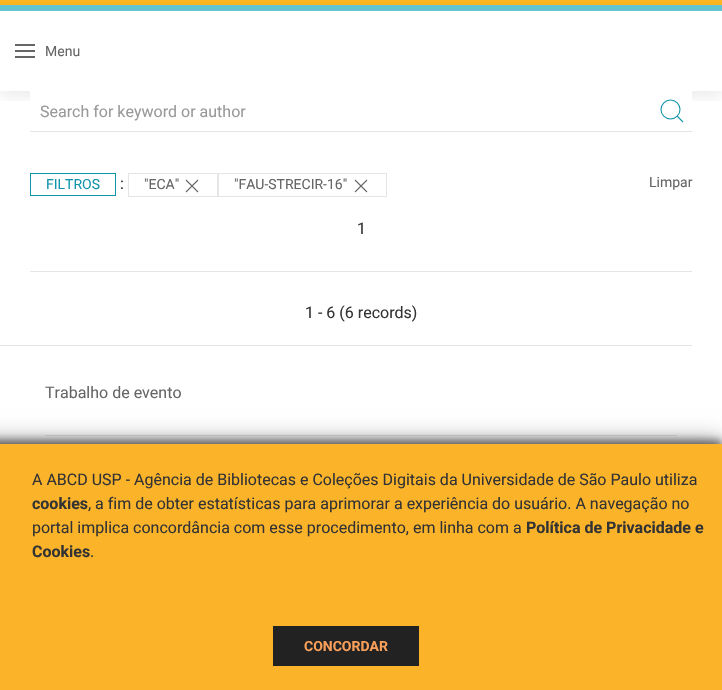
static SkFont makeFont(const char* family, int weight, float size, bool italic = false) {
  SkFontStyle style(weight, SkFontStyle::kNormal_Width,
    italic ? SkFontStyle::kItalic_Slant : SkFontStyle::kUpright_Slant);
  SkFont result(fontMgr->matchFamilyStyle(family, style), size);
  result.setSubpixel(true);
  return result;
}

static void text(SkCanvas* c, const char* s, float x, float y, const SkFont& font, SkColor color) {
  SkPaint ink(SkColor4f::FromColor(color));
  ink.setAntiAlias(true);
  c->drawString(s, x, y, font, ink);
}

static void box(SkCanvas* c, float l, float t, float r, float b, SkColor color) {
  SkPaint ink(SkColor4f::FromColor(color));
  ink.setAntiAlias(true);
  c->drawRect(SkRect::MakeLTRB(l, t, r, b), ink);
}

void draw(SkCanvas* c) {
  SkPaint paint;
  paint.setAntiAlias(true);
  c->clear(0xffffffff);
  box(c, 0, 0, 722, 5, 0xfffcb421);
  box(c, 0, 5, 722, 11, 0xff64c4d2);
  c->save();
  c->clipRect(SkRect::MakeLTRB(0, 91, 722, 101));
  paint.setColor(0x14000000);
  paint.setMaskFilter(SkMaskFilter::MakeBlur(kNormal_SkBlurStyle, 7.5f));
  c->drawRect(SkRect::MakeLTRB(0, 16, 722, 96), paint);
  paint.setMaskFilter(nullptr);
  c->restore();
  box(c, 15, 44, 35, 46, 0xff666666);
  box(c, 15, 50, 35, 52, 0xff666666);
  box(c, 15, 56, 35, 58, 0xff666666);
  SkFont face1 = makeFont("Roboto", 400, 14);
  text(c, "Menu", 45, 56, face1, 0xff666666);
  box(c, 30, 131, 692, 132, 0xffe5e5e5);
  box(c, 30, 91, 692, 105, 0xffffffff);
  SkFont face2 = makeFont("Roboto", 400, 16);
  text(c, "Search for keyword or author", 40, 117, face2, 0xff999999);
  paint.setStyle(SkPaint::kStroke_Style);
  paint.setStrokeWidth(1.1f);
  paint.setColor(0xff1094ab);
  c->drawCircle(670.5f, 109.5f, 9.5f, paint);
  c->drawPath(SkPathBuilder().moveTo(683, 122).lineTo(677, 116).detach(), paint);
  paint.setStrokeWidth(1);
  c->drawRect(SkRect::MakeLTRB(30.5f, 173.5f, 115.5f, 195.5f), paint);
  text(c, "FILTROS", 46, 189, face1, 0xff1094ab);
  text(c, ":", 120, 189, face2, 0xff333333);
  paint.setColor(0xffe5e5e5);
  c->drawRect(SkRect::MakeLTRB(128.5f, 173.5f, 217.5f, 196.5f), paint);
  text(c, "\"ECA\"", 144, 189, face1, 0xff666666);
  paint.setStrokeWidth(1.1f);
  paint.setColor(0xff666666);
  c->drawPath(SkPathBuilder().moveTo(198, 192).lineTo(186, 180).moveTo(198, 180).lineTo(186, 192).detach(), paint);
  paint.setStrokeWidth(1);
  paint.setColor(0xffe5e5e5);
  c->drawRect(SkRect::MakeLTRB(218.5f, 173.5f, 386.5f, 196.5f), paint);
  text(c, "\"FAU-STRECIR-16\"", 234, 189, face1, 0xff666666);
  paint.setStrokeWidth(1.1f);
  paint.setColor(0xff666666);
  c->drawPath(SkPathBuilder().moveTo(367, 192).lineTo(355, 180).moveTo(367, 180).lineTo(355, 192).detach(), paint);
  text(c, "Limpar", 649, 187, face1, 0xff666666);
  text(c, "1", 357, 234, face2, 0xff333333);
  box(c, 30, 271, 692, 272, 0xffe5e5e5);
  text(c, "1 - 6 (6 records)", 305, 318, face2, 0xff333333);
  box(c, 0, 345, 692, 346, 0xffe5e5e5);
  text(c, "Trabalho de evento", 45, 398, face2, 0xff666666);
  box(c, 45, 435, 677, 436, 0xffe5e5e5);
  paint.setStyle(SkPaint::kFill_Style);
  paint.setColor(0x4d000000);
  paint.setMaskFilter(SkMaskFilter::MakeBlur(kNormal_SkBlurStyle, 10));
  c->drawRect(SkRect::MakeLTRB(-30, 438, 722, 684), paint);
  paint.setMaskFilter(nullptr);
  paint.setColor(0x80000000);
  paint.setMaskFilter(SkMaskFilter::MakeBlur(kNormal_SkBlurStyle, 4));
  c->drawRect(SkRect::MakeLTRB(-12, 440, 722, 686), paint);
  paint.setMaskFilter(nullptr);
  box(c, 0, 444, 722, 690, 0xfffbb42a);
  text(c, "A ABCD USP - Agência de Bibliotecas e Coleções Digitais da Universidade de São Paulo utiliza", 32, 485, face2, 0xff333333);
  SkFont face3 = makeFont("Roboto", 700, 16);
  text(c, "cookies", 32, 509, face3, 0xff333333);
  text(c, ", a fim de obter estatísticas para aprimorar a experiência do usuário. A navegação no", 88, 509, face2, 0xff333333);
  text(c, "portal implica concordância com esse procedimento, em linha com a", 32, 533, face2, 0xff333333);
  text(c, "Política de Privacidade e", 526, 533, face3, 0xff333333);
  text(c, "Cookies", 32, 557, face3, 0xff333333);
  text(c, ".", 90, 557, face2, 0xff333333);
  box(c, 273, 626, 419, 666, 0xff222222);
  SkFont face4 = makeFont("Roboto", 700, 14);
  text(c, "CONCORDAR", 304, 651, face4, 0xfffaa05a);
}
